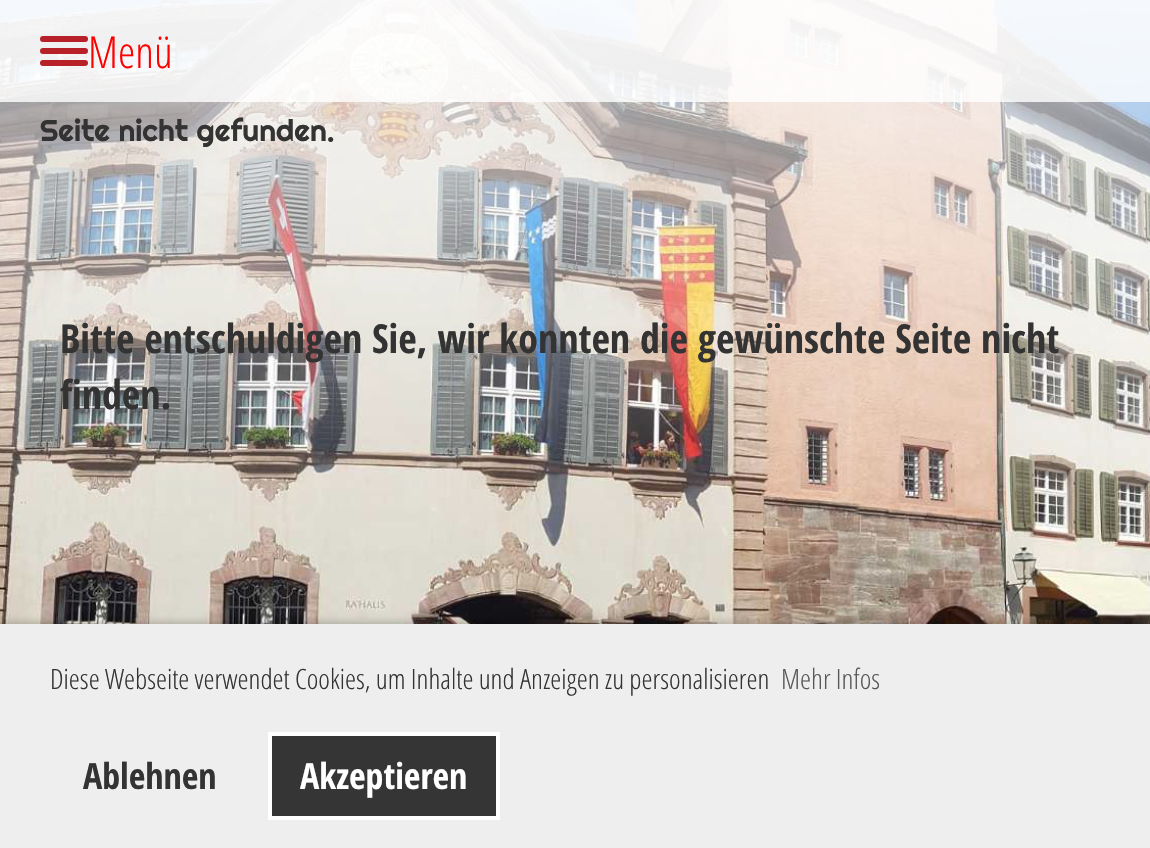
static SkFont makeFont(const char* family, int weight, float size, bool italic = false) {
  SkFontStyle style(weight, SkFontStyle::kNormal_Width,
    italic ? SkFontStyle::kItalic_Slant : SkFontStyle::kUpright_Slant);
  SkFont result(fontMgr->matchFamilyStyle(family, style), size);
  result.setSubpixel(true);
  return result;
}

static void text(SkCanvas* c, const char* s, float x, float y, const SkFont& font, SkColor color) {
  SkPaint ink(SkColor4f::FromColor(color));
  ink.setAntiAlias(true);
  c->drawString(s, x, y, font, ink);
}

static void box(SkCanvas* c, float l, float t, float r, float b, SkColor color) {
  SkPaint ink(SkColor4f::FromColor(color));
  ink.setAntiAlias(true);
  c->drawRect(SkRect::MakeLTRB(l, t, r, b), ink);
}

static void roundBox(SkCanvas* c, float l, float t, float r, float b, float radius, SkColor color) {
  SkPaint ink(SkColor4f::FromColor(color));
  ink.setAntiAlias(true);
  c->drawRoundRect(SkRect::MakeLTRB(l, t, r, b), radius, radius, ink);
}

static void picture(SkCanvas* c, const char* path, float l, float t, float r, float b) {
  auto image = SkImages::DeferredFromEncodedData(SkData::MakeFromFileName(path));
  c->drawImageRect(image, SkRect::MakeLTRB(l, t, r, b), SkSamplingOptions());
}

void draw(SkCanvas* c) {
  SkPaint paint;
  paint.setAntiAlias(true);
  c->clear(0xffffffff);
  picture(c, "img_01.png", 0, 0, 1150, 624);
  box(c, 0, 0, 1150, 102, 0xccffffff);
  roundBox(c, 40, 36, 88, 42, 3, 0xffb72028);
  roundBox(c, 40, 48, 88, 54, 3, 0xe6b10912);
  roundBox(c, 40, 60, 88, 66, 3, 0xe6b10912);
  SkFont face1 = makeFont("Open Sans Condensed", 300, 44);
  text(c, "Menü", 88, 68, face1, 0xffff0000);
  SkFont face2 = makeFont("Righteous", 400, 30);
  text(c, "Seite nicht gefunden.", 40, 141, face2, 0xff333333);
  SkFont face3 = makeFont("Open Sans Condensed", 700, 40);
  text(c, "Bitte entschuldigen Sie, wir konnten die gewünschte Seite nicht", 60, 353, face3, 0xff333333);
  text(c, "finden.", 60, 409, face3, 0xff333333);
  paint.setColor(0x4d000000);
  paint.setMaskFilter(SkMaskFilter::MakeBlur(kNormal_SkBlurStyle, 5));
  c->drawRect(SkRect::MakeLTRB(0, 624, 1150, 848), paint);
  paint.setMaskFilter(nullptr);
  box(c, 0, 624, 1150, 848, 0xffeeeeee);
  SkFont face4 = makeFont("Open Sans Condensed", 300, 28);
  text(c, "Diese Webseite verwendet Cookies, um Inhalte und Anzeigen zu personalisieren", 50, 689, face4, 0xff333333);
  text(c, "Mehr Infos", 781, 689, face4, 0xff585858);
  SkFont face5 = makeFont("Open Sans Condensed", 700, 36);
  text(c, "Ablehnen", 83, 789, face5, 0xff333333);
  paint.setColor(0xff353535);
  c->drawRect(SkRect::MakeLTRB(270, 734, 498, 818), paint);
  paint.setStyle(SkPaint::kStroke_Style);
  paint.setStrokeWidth(4);
  paint.setColor(0xffffffff);
  c->drawRect(SkRect::MakeLTRB(270, 734, 498, 818), paint);
  text(c, "Akzeptieren", 300, 789, face5, 0xffffffff);
}
